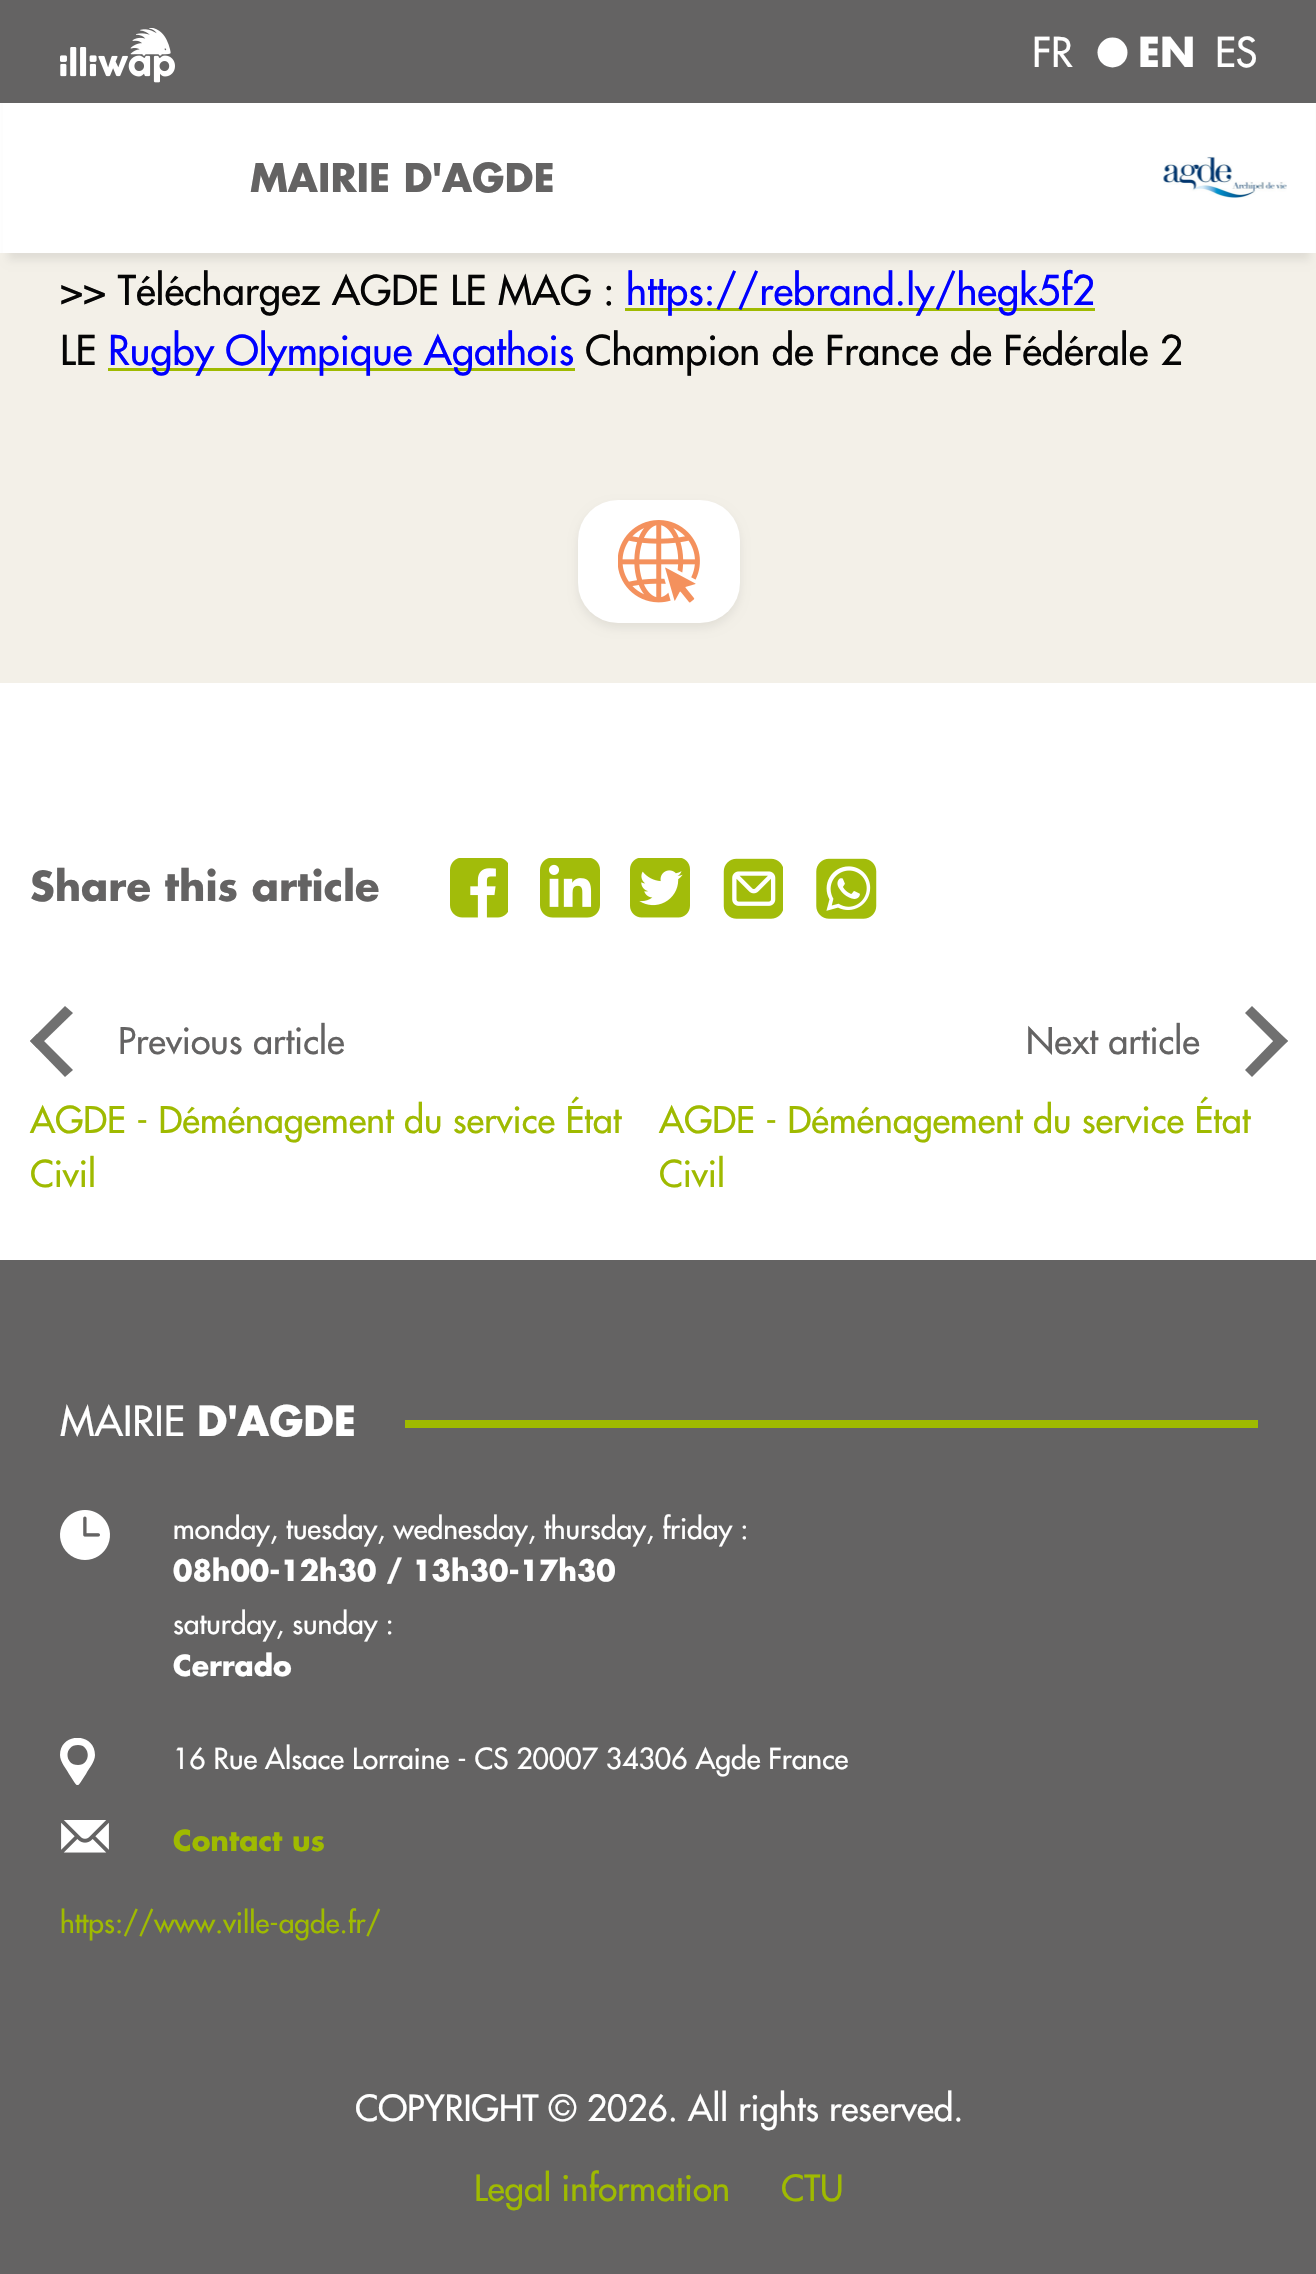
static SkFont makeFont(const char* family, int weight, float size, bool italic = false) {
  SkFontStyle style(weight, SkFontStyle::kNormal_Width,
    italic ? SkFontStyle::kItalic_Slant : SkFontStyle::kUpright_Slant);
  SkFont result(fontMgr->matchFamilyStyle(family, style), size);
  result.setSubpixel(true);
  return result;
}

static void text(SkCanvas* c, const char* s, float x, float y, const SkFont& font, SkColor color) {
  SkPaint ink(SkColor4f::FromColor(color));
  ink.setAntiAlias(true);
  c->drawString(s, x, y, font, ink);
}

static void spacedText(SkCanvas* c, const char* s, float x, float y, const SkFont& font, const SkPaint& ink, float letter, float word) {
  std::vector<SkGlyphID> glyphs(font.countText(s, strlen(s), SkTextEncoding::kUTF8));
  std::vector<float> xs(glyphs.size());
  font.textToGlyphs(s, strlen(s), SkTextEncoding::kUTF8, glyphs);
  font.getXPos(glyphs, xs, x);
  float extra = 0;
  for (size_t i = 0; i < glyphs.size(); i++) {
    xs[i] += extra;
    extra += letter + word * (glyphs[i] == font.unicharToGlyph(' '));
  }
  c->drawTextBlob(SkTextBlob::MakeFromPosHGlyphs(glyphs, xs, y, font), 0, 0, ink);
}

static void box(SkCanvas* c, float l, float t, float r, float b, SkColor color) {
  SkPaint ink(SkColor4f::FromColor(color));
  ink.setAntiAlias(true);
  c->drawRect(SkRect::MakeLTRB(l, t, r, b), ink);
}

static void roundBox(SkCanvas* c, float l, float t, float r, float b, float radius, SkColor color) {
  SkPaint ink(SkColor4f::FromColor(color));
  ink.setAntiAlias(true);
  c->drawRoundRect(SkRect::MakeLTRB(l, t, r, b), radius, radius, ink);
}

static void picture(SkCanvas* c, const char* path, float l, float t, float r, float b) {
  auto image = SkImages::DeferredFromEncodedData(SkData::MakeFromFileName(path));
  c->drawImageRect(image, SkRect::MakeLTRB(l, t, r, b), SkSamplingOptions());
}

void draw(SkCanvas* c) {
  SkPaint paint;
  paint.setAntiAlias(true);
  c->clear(0xffffffff);
  box(c, 0, 253, 1316, 683, 0xfff3f0e8);
  paint.setColor(0x14000000);
  paint.setMaskFilter(SkMaskFilter::MakeBlur(kNormal_SkBlurStyle, 4));
  c->drawRect(SkRect::MakeLTRB(8, 23, 1310, 260), paint);
  paint.setMaskFilter(nullptr);
  box(c, 3, 103, 1315, 253, 0xffffffff);
  box(c, 0, 0, 1316, 103, 0xff646363);
  picture(c, "img_01.png", 60, 28, 175, 83);
  SkFont face1 = makeFont("Futura", 400, 40);
  text(c, "FR", 1032, 67, face1, 0xffffffff);
  paint.setColor(0xffffffff);
  c->drawCircle(1112.5f, 52.5f, 15, paint);
  SkFont face2 = makeFont("Futura", 700, 40);
  text(c, "EN", 1138, 67, face2, 0xffffffff);
  text(c, "ES", 1215, 67, face1, 0xffffffff);
  SkFont face3 = makeFont("Futura", 700, 38.5f);
  text(c, "MAIRIE D'AGDE", 250, 192, face3, 0xff646363);
  picture(c, "img_02.png", 1163, 156, 1287, 198);
  text(c, ">> Téléchargez AGDE LE MAG :", 60, 305, face1, 0xff050505);
  box(c, 625, 308, 1095, 311, 0xff9fba00);
  text(c, "https://rebrand.ly/hegk5f2", 626, 305, face1, 0xff0000ff);
  text(c, "LE", 60, 365, face1, 0xff050505);
  box(c, 108, 368, 575, 371, 0xff9fba00);
  text(c, "Rugby Olympique Agathois", 108, 365, face1, 0xff0000ff);
  text(c, "Champion de France de Fédérale 2", 585, 365, face1, 0xff050505);
  paint.setColor(0x12000000);
  paint.setMaskFilter(SkMaskFilter::MakeBlur(kNormal_SkBlurStyle, 5));
  c->drawRoundRect(SkRect::MakeLTRB(578, 505, 740, 628), 40, 40, paint);
  paint.setMaskFilter(nullptr);
  roundBox(c, 578, 500, 740, 623, 40, 0xffffffff);
  picture(c, "img_03.png", 618, 520, 700, 603);
  text(c, "Share this article", 30, 901, face2, 0xff646363);
  picture(c, "img_04.png", 450, 858, 508, 918);
  picture(c, "img_05.png", 540, 858, 600, 918);
  picture(c, "img_06.png", 630, 858, 690, 918);
  picture(c, "img_07.png", 723, 858, 783, 919);
  picture(c, "img_08.png", 816, 858, 877, 919);
  paint.setColor(0xff707070);
  c->drawPath(SkPathBuilder().moveTo(65, 1077).lineTo(30, 1041).lineTo(37, 1034).lineTo(73, 1070).close().detach(), paint);
  c->drawPath(SkPathBuilder().moveTo(30, 1041).lineTo(65, 1006).lineTo(73, 1013).lineTo(37, 1048).close().detach(), paint);
  SkFont face4 = makeFont("Futura", 400, 35.9f);
  text(c, "Previous article", 118, 1054, face4, 0xff646363);
  c->drawPath(SkPathBuilder().moveTo(1252, 1006).lineTo(1288, 1041).lineTo(1280, 1048).lineTo(1245, 1013).close().detach(), paint);
  c->drawPath(SkPathBuilder().moveTo(1288, 1041).lineTo(1252, 1077).lineTo(1245, 1070).lineTo(1280, 1034).close().detach(), paint);
  text(c, "Next article", 1026, 1054, face4, 0xff646363);
  text(c, "AGDE - Déménagement du service État", 30, 1133, face4, 0xff9fba00);
  text(c, "Civil", 30, 1187, face4, 0xff9fba00);
  text(c, "AGDE - Déménagement du service État", 659, 1133, face4, 0xff9fba00);
  text(c, "Civil", 659, 1187, face4, 0xff9fba00);
  box(c, 0, 1260, 1316, 2274, 0xff646363);
  box(c, 405, 1420, 1258, 1428, 0xff9fba00);
  SkFont face5 = makeFont("Futura", 400, 40.5f);
  text(c, "MAIRIE", 60, 1436, face5, 0xffffffff);
  SkFont face6 = makeFont("Futura", 700, 40.5f);
  text(c, "D'AGDE", 197, 1436, face6, 0xffffffff);
  picture(c, "img_09.png", 60, 1510, 110, 1560);
  SkFont face7 = makeFont("Futura", 400, 28.25f);
  text(c, "monday, tuesday, wednesday, thursday, friday :", 173, 1539, face7, 0xffffffff);
  SkFont face8 = makeFont("Futura", 700, 28.25f);
  text(c, "08h00-12h30 / 13h30-17h30", 173, 1581, face8, 0xffffffff);
  text(c, "saturday, sunday :", 173, 1634, face7, 0xffffffff);
  text(c, "Cerrado", 173, 1676, face8, 0xffffffff);
  c->save();
  c->clipRect(SkRect::MakeLTRB(60, 1738, 95, 1785));
  paint.setColor(0xffffffff);
  c->drawPath(SkPathBuilder().moveTo(95, 1755).cubicTo(95, 1762, 89, 1768, 86, 1774).cubicTo(76, 1789, 79, 1789, 69, 1774).cubicTo(66, 1768, 60, 1762, 60, 1755).cubicTo(60, 1732, 95, 1732, 95, 1755).close().moveTo(78, 1765).cubicTo(91, 1765, 91, 1745, 78, 1745).cubicTo(64, 1745, 64, 1765, 78, 1765).close().detach(), paint);
  c->restore();
  spacedText(c, "16 Rue Alsace Lorraine - CS 20007 34306 Agde France", 173, 1769, face7, paint, 0, -0.25f);
  picture(c, "img_10.png", 61, 1820, 109, 1853);
  text(c, "Contact us", 173, 1851, face8, 0xff9fba00);
  text(c, "https://www.ville-agde.fr/", 60, 1933, face7, 0xff9fba00);
  SkFont face9 = makeFont("Futura", 400, 35);
  text(c, "COPYRIGHT © 2026. All rights reserved.", 355, 2121, face9, 0xffffffff);
  text(c, "Legal information", 474, 2201, face9, 0xff9fba00);
  text(c, "CTU", 781, 2201, face9, 0xff9fba00);
}
